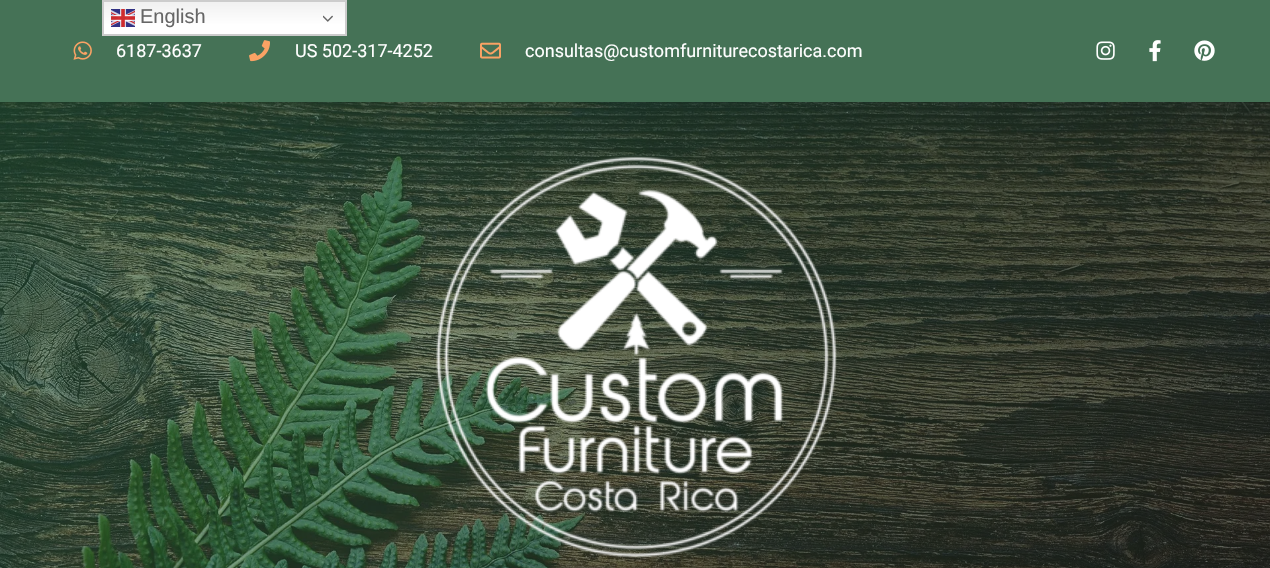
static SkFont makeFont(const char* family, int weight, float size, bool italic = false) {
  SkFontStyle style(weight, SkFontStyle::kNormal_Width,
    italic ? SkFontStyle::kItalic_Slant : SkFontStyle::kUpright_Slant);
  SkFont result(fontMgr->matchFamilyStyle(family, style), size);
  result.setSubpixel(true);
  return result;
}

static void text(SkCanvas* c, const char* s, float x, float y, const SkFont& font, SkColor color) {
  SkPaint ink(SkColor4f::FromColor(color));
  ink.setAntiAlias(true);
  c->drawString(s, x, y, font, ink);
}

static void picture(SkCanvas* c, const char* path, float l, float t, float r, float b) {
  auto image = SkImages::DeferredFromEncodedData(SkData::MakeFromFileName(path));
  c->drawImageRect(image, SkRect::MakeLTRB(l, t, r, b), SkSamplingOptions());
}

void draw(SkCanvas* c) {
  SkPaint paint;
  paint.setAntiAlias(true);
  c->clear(0xff457256);
  {
    const SkColor colors[] = {0xffefefef, 0xffffffff};
    const float stops[] = {0, 0.7f};
    const SkPoint ends[] = {{224, 0}, {224, 36}};
    paint.setShader(SkGradientShader::MakeLinear(ends, colors, stops, 2, SkTileMode::kClamp));
    paint.setAlpha(255);
  }
  c->drawRect(SkRect::MakeLTRB(104, 2, 345, 34), paint);
  paint.setStyle(SkPaint::kStroke_Style);
  paint.setStrokeWidth(2);
  paint.setShader(nullptr);
  paint.setColor(0xffcccccc);
  c->drawRect(SkRect::MakeLTRB(103, 1, 346, 35), paint);
  picture(c, "img_01.png", 111, 9, 135, 27);
  SkFont face1 = makeFont("Liberation Sans", 400, 20);
  text(c, "English", 140, 23, face1, 0xff666666);
  picture(c, "img_02.png", 323, 15, 333, 22);
  picture(c, "img_03.png", 73, 41, 92, 60);
  SkFont face2 = makeFont("Roboto", 400, 18);
  text(c, "6187-3637", 116, 57, face2, 0xffffffff);
  picture(c, "img_04.png", 249, 40, 270, 62);
  text(c, "US 502-317-4252", 295, 57, face2, 0xffffffff);
  picture(c, "img_05.png", 480, 42, 501, 59);
  text(c, "consultas@customfurniturecostarica.com", 525, 57, face2, 0xffffffff);
  picture(c, "img_06.png", 1096, 41, 1115, 60);
  picture(c, "img_07.png", 1149, 40, 1161, 62);
  picture(c, "img_08.png", 1194, 40, 1215, 61);
  picture(c, "img_09.png", 0, 102, 1270, 568);
  picture(c, "img_10.png", 436, 156, 837, 558);
}
